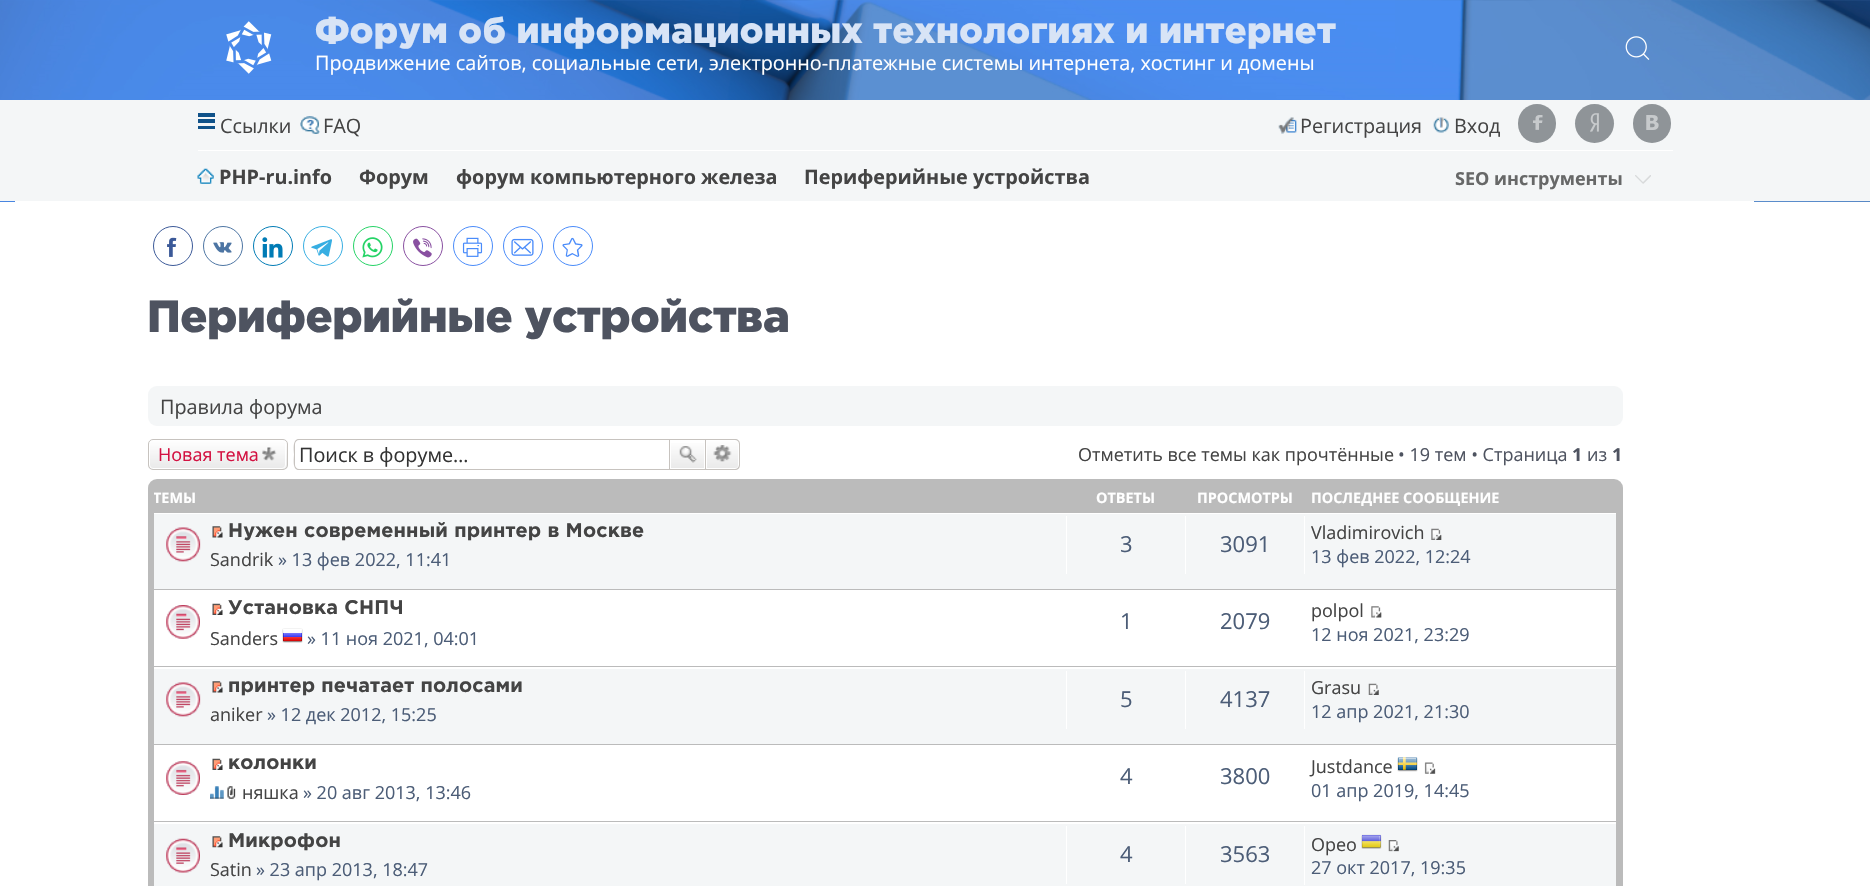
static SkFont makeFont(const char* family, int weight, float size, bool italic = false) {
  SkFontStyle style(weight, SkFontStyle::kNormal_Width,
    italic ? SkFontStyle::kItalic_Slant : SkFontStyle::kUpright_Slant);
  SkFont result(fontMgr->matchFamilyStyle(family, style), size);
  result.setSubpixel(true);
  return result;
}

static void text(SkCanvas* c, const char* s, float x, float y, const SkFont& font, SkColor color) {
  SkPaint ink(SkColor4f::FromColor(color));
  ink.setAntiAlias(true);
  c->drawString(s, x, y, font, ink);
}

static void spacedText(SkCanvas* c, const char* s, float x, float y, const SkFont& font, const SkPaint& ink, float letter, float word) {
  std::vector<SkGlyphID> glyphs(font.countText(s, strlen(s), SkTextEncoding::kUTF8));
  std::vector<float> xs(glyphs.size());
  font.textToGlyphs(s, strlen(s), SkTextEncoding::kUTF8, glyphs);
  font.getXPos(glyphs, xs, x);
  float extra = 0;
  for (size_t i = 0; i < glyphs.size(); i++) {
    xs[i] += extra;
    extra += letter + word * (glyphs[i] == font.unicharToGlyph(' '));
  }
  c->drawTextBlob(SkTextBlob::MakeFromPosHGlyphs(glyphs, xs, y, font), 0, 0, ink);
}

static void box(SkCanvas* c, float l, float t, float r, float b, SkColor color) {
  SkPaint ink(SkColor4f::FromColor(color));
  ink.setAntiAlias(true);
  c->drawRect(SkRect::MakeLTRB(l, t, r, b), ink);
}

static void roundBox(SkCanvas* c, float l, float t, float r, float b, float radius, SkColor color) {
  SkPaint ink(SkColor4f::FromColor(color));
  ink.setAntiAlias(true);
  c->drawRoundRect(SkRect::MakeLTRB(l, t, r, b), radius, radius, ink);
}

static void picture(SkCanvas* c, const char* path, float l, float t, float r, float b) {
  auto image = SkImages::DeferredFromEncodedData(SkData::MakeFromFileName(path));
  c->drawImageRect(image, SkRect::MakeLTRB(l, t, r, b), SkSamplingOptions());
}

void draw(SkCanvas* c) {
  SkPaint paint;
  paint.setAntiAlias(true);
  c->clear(0xffffffff);
  picture(c, "img_01.png", 0, 0, 1870, 202);
  picture(c, "img_02.png", 226, 21, 272, 74);
  SkFont face1 = makeFont("Gotham", 900, 36);
  paint.setColor(0xffd8e4f6);
  spacedText(c, "Форум об информационных технологиях и интернет", 315, 43, face1, paint, 0.3f, 0);
  SkFont face2 = makeFont("Open Sans", 400, 19.8f);
  text(c, "Продвижение сайтов, социальные сети, электронно-платежные системы интернета, хостинг и домены", 315, 70, face2, 0xffffffff);
  picture(c, "img_03.png", 1625, 36, 1650, 60);
  box(c, 0, 100, 1870, 201, 0xfff4f6f7);
  box(c, 198, 113, 215, 117, 0xff105289);
  box(c, 198, 119, 215, 123, 0xff105289);
  box(c, 198, 126, 215, 129, 0xff105289);
  text(c, "Ссылки", 220, 133, face2, 0xff444444);
  picture(c, "img_04.png", 300, 116, 320, 134);
  text(c, "FAQ", 323, 133, face2, 0xff444444);
  picture(c, "img_05.png", 1278, 117, 1297, 134);
  text(c, "Регистрация", 1300, 133, face2, 0xff444444);
  picture(c, "img_06.png", 1433, 117, 1449, 133);
  text(c, "Вход", 1454, 133, face2, 0xff444444);
  roundBox(c, 1518, 104, 1556, 143, 19, 0xff8f9498);
  picture(c, "img_07.png", 1533, 115, 1543, 130);
  paint.setColor(0xff8f9498);
  c->drawCircle(1594.5f, 123.5f, 19.5f, paint);
  picture(c, "img_08.png", 1590, 113, 1599, 132);
  roundBox(c, 1633, 104, 1671, 143, 19, 0xff8f9498);
  picture(c, "img_09.png", 1646, 115, 1659, 130);
  box(c, 198, 150, 1673, 151, 0xffffffff);
  picture(c, "img_10.png", 197, 168, 214, 184);
  SkFont face3 = makeFont("Open Sans", 700, 19.8f);
  text(c, "PHP-ru.info", 219, 184, face3, 0xff444444);
  text(c, "Форум", 359, 184, face3, 0xff444444);
  text(c, "форум компьютерного железа", 456, 184, face3, 0xff444444);
  text(c, "Периферийные устройства", 804, 184, face3, 0xff444444);
  SkFont face4 = makeFont("Open Sans", 700, 18);
  text(c, "SEO инструменты", 1455, 185, face4, 0xff676868);
  picture(c, "img_11.png", 1635, 175, 1651, 184);
  box(c, 15, 201, 1754, 202, 0xffffffff);
  paint.setStyle(SkPaint::kStroke_Style);
  paint.setStrokeWidth(1);
  paint.setColor(0xff3b5998);
  c->drawCircle(173, 246, 19.5f, paint);
  picture(c, "img_12.png", 167, 237, 177, 257);
  paint.setColor(0xff4d75a3);
  c->drawCircle(223, 246, 19.5f, paint);
  picture(c, "img_13.png", 213, 242, 232, 253);
  paint.setColor(0xff007bb5);
  c->drawCircle(273, 246, 19.5f, paint);
  picture(c, "img_14.png", 262, 237, 283, 258);
  paint.setColor(0xff37aee2);
  c->drawCircle(323, 246, 19.5f, paint);
  picture(c, "img_15.png", 311, 239, 332, 257);
  paint.setColor(0xff25d366);
  c->drawCircle(373, 246, 19.5f, paint);
  picture(c, "img_16.png", 362, 237, 383, 258);
  paint.setColor(0xff8950a1);
  c->drawCircle(423, 246, 19.5f, paint);
  picture(c, "img_17.png", 413, 238, 432, 258);
  paint.setColor(0xff498bfa);
  c->drawCircle(473, 246, 19.5f, paint);
  picture(c, "img_18.png", 462, 237, 483, 257);
  c->drawCircle(523, 246, 19.5f, paint);
  picture(c, "img_19.png", 511, 238, 534, 256);
  c->drawCircle(573, 246, 19.5f, paint);
  picture(c, "img_20.png", 562, 237, 583, 257);
  SkFont face5 = makeFont("Gotham", 900, 45);
  paint.setStyle(SkPaint::kFill_Style);
  paint.setColor(0xff4e5360);
  spacedText(c, "Периферийные устройства", 147, 332, face5, paint, -0.45f, 0);
  roundBox(c, 148, 386, 1623, 426, 9, 0xfff4f6f7);
  text(c, "Правила форума", 160, 414, face2, 0xff444444);
  c->save();
  c->clipPath(SkPathBuilder().moveTo(153, 439).lineTo(283, 439).cubicTo(286, 439, 288, 441, 288, 444).lineTo(288, 465).cubicTo(288, 468, 286, 470, 283, 470).lineTo(153, 470).cubicTo(150, 470, 148, 468, 148, 465).lineTo(148, 444).cubicTo(148, 441, 150, 439, 153, 439).close().detach(), true);
  {
    const SkColor colors[] = {0xffffffff, 0xffe9e9e9};
    const float stops[] = {0, 1};
    const SkPoint ends[] = {{218, 440}, {218, 469}};
    paint.setShader(SkGradientShader::MakeLinear(ends, colors, stops, 2, SkTileMode::kClamp));
    paint.setAlpha(255);
  }
  c->drawRect(SkRect::MakeLTRB(148, 440, 288, 469), paint);
  c->restore();
  paint.setStyle(SkPaint::kStroke_Style);
  paint.setShader(nullptr);
  paint.setColor(0xffffffff);
  c->drawRoundRect(SkRect::MakeLTRB(149.5f, 440.5f, 285.5f, 468.5f), 3.5f, 3.5f, paint);
  paint.setColor(0xffc7c3bf);
  c->drawRoundRect(SkRect::MakeLTRB(148.5f, 439.5f, 287.5f, 469.5f), 4.5f, 4.5f, paint);
  SkFont face6 = makeFont("Open Sans", 400, 18);
  text(c, "Новая тема", 158, 461, face6, 0xffd31141);
  picture(c, "img_21.png", 262, 447, 277, 461);
  paint.setStyle(SkPaint::kFill_Style);
  c->drawPath(SkPathBuilder(SkPathFillType::kEvenOdd).moveTo(299, 439).lineTo(669, 439).lineTo(669, 470).lineTo(299, 470).cubicTo(292, 470, 294, 459, 294, 454).cubicTo(294, 450, 292, 439, 299, 439).close().moveTo(299, 440).lineTo(669, 440).lineTo(669, 469).lineTo(299, 469).cubicTo(297, 469, 295, 467, 295, 465).lineTo(295, 444).cubicTo(295, 442, 297, 440, 299, 440).close().detach(), paint);
  text(c, "Поиск в форуме…", 299, 462, face2, 0xff333333);
  {
    const SkColor colors[] = {0xffffffff, 0xffe9e9e9};
    const float stops[] = {0, 1};
    const SkPoint ends[] = {{688, 440}, {688, 469}};
    paint.setShader(SkGradientShader::MakeLinear(ends, colors, stops, 2, SkTileMode::kClamp));
    paint.setAlpha(255);
  }
  c->drawRect(SkRect::MakeLTRB(671, 443, 704, 468), paint);
  paint.setStyle(SkPaint::kStroke_Style);
  paint.setShader(nullptr);
  paint.setColor(0xffc7c3bf);
  c->drawRect(SkRect::MakeLTRB(669.5f, 439.5f, 705.5f, 469.5f), paint);
  picture(c, "img_22.png", 679, 446, 697, 463);
  paint.setStyle(SkPaint::kFill_Style);
  {
    const SkColor colors[] = {0xffffffff, 0xffe9e9e9};
    const float stops[] = {0, 1};
    const SkPoint ends[] = {{723, 440}, {723, 469}};
    paint.setShader(SkGradientShader::MakeLinear(ends, colors, stops, 2, SkTileMode::kClamp));
    paint.setAlpha(255);
  }
  c->drawPath(SkPathBuilder().moveTo(706.5f, 440.5f).lineTo(735, 440.5f).cubicTo(737, 440.5f, 738.5f, 442, 738.5f, 444).lineTo(738.5f, 465).cubicTo(738.5f, 467, 737, 468.5f, 735, 468.5f).lineTo(706.5f, 468.5f).close().detach(), paint);
  paint.setStyle(SkPaint::kStroke_Style);
  paint.setShader(nullptr);
  paint.setColor(0xffffffff);
  c->drawPath(SkPathBuilder().moveTo(706.5f, 440.5f).lineTo(735, 440.5f).cubicTo(737, 440.5f, 738.5f, 442, 738.5f, 444).lineTo(738.5f, 465).cubicTo(738.5f, 467, 737, 468.5f, 735, 468.5f).lineTo(706.5f, 468.5f).close().detach(), paint);
  paint.setStyle(SkPaint::kFill_Style);
  paint.setColor(0xffc7c3bf);
  c->drawPath(SkPathBuilder(SkPathFillType::kEvenOdd).moveTo(706, 439).lineTo(735, 439).cubicTo(738, 439, 740, 441, 740, 444).lineTo(740, 465).cubicTo(740, 468, 738, 470, 735, 470).lineTo(706, 470).close().moveTo(706, 440).lineTo(735, 440).cubicTo(737, 440, 739, 441.5f, 739, 444).lineTo(739, 465).cubicTo(739, 467, 737, 469, 735, 469).lineTo(706, 469).close().detach(), paint);
  picture(c, "img_23.png", 713, 445, 732, 462);
  text(c, "Отметить все темы как прочтённые", 1078, 461, face6, 0xff444444);
  text(c, "• 19 тем • Страница", 1398, 461, face6, 0xff4e5360);
  text(c, "1", 1572, 461, face4, 0xff4e5360);
  text(c, "из", 1587, 461, face6, 0xff4e5360);
  text(c, "1", 1612, 461, face4, 0xff4e5360);
  roundBox(c, 148, 479, 1623, 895, 9, 0xffbbbbbb);
  c->save();
  c->clipRect(SkRect::MakeLTRB(154, 485, 1616, 513));
  SkFont face7 = makeFont("Open Sans", 700, 14.4f);
  text(c, "ТЕМЫ", 153, 503, face7, 0xffffffff);
  c->restore();
  text(c, "ОТВЕТЫ", 1096, 503, face7, 0xffffffff);
  text(c, "ПРОСМОТРЫ", 1197, 503, face7, 0xffffffff);
  text(c, "ПОСЛЕДНЕЕ СООБЩЕНИЕ", 1311, 503, face7, 0xffffffff);
  box(c, 154, 514, 1616, 589, 0xfff4f6f7);
  box(c, 154, 513, 1616, 514, 0xffffffff);
  picture(c, "img_24.png", 166, 527, 201, 562);
  picture(c, "img_25.png", 212, 526, 223, 538);
  SkFont face8 = makeFont("Gotham", 700, 19.8f);
  paint.setColor(0xff444444);
  spacedText(c, "Нужен современный принтер в Москве", 228, 537, face8, paint, 0.15f, 0);
  text(c, "Sandrik", 210, 566, face6, 0xff444444);
  text(c, "» 13 фев 2022, 11:41", 278, 566, face6, 0xff4c5d77);
  box(c, 1066, 516, 1067, 574, 0xffffffff);
  SkFont face9 = makeFont("Open Sans", 400, 22);
  text(c, "3", 1120, 552, face9, 0xff4c5d77);
  box(c, 1185, 516, 1186, 574, 0xffffffff);
  text(c, "3091", 1220, 552, face9, 0xff4c5d77);
  box(c, 1304, 516, 1305, 574, 0xffffffff);
  text(c, "Vladimirovich", 1311, 539, face6, 0xff444444);
  picture(c, "img_26.png", 1431, 528, 1442, 540);
  text(c, "13 фев 2022, 12:24", 1311, 563, face6, 0xff4c5d77);
  box(c, 154, 590, 1616, 669, 0xffffffff);
  box(c, 154, 666, 1616, 667, 0xffbbbbbb);
  picture(c, "img_27.png", 166, 605, 200, 639);
  picture(c, "img_28.png", 212, 603, 223, 615);
  spacedText(c, "Установка СНПЧ", 228, 614, face8, paint, 0.15f, 0);
  text(c, "Sanders", 210, 645, face6, 0xff444444);
  picture(c, "img_29.png", 282, 628, 303, 643);
  text(c, "» 11 ноя 2021, 04:01", 307, 645, face6, 0xff4c5d77);
  text(c, "1", 1120, 629, face9, 0xff4c5d77);
  text(c, "2079", 1220, 629, face9, 0xff4c5d77);
  text(c, "polpol", 1311, 617, face6, 0xff444444);
  picture(c, "img_30.png", 1371, 606, 1382, 618);
  text(c, "12 ноя 2021, 23:29", 1311, 641, face6, 0xff4c5d77);
  box(c, 154, 669, 1616, 744, 0xfff4f6f7);
  picture(c, "img_24.png", 166, 682, 201, 717);
  picture(c, "img_25.png", 212, 681, 223, 693);
  spacedText(c, "принтер печатает полосами", 228, 692, face8, paint, 0.15f, 0);
  text(c, "aniker", 210, 721, face6, 0xff444444);
  text(c, "» 12 дек 2012, 15:25", 267, 721, face6, 0xff4c5d77);
  box(c, 1066, 671, 1067, 729, 0xffffffff);
  text(c, "5", 1120, 707, face9, 0xff4c5d77);
  box(c, 1185, 671, 1186, 729, 0xffffffff);
  text(c, "4137", 1220, 707, face9, 0xff4c5d77);
  box(c, 1304, 671, 1305, 729, 0xffffffff);
  text(c, "Grasu", 1311, 694, face6, 0xff444444);
  picture(c, "img_31.png", 1368, 683, 1379, 695);
  text(c, "12 апр 2021, 21:30", 1311, 718, face6, 0xff4c5d77);
  box(c, 154, 745, 1616, 824, 0xffffffff);
  box(c, 154, 821, 1616, 822, 0xffbbbbbb);
  picture(c, "img_32.png", 166, 761, 200, 795);
  picture(c, "img_28.png", 212, 758, 223, 770);
  spacedText(c, "колонки", 228, 769, face8, paint, 0.15f, 0);
  picture(c, "img_33.png", 210, 786, 224, 799);
  picture(c, "img_34.png", 227, 786, 236, 799);
  text(c, "няшка", 242, 799, face6, 0xff444444);
  text(c, "» 20 авг 2013, 13:46", 303, 799, face6, 0xff4c5d77);
  text(c, "4", 1120, 784, face9, 0xff4c5d77);
  text(c, "3800", 1220, 784, face9, 0xff4c5d77);
  text(c, "Justdance", 1311, 773, face6, 0xff444444);
  picture(c, "img_35.png", 1397, 757, 1418, 772);
  picture(c, "img_36.png", 1424, 762, 1436, 774);
  text(c, "01 апр 2019, 14:45", 1311, 797, face6, 0xff4c5d77);
  box(c, 154, 824, 1616, 886, 0xfff4f6f7);
  picture(c, "img_37.png", 166, 838, 200, 873);
  picture(c, "img_38.png", 212, 836, 223, 848);
  spacedText(c, "Микрофон", 228, 847, face8, paint, 0.15f, 0);
  text(c, "Satin", 210, 876, face6, 0xff444444);
  text(c, "» 23 апр 2013, 18:47", 256, 876, face6, 0xff4c5d77);
  box(c, 1066, 826, 1067, 884, 0xffffffff);
  text(c, "4", 1120, 862, face9, 0xff4c5d77);
  box(c, 1185, 826, 1186, 884, 0xffffffff);
  text(c, "3563", 1220, 862, face9, 0xff4c5d77);
  box(c, 1304, 826, 1305, 885, 0xffffffff);
  text(c, "Орео", 1311, 851, face6, 0xff444444);
  picture(c, "img_39.png", 1361, 834, 1382, 849);
  picture(c, "img_40.png", 1388, 840, 1399, 852);
  text(c, "27 окт 2017, 19:35", 1311, 874, face6, 0xff4c5d77);
}
